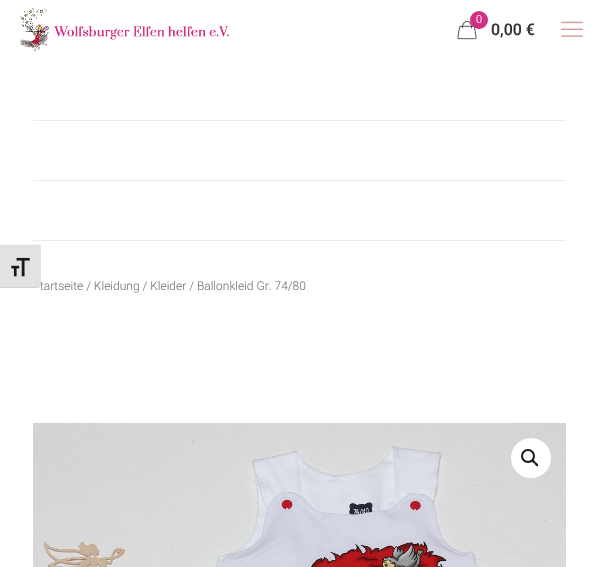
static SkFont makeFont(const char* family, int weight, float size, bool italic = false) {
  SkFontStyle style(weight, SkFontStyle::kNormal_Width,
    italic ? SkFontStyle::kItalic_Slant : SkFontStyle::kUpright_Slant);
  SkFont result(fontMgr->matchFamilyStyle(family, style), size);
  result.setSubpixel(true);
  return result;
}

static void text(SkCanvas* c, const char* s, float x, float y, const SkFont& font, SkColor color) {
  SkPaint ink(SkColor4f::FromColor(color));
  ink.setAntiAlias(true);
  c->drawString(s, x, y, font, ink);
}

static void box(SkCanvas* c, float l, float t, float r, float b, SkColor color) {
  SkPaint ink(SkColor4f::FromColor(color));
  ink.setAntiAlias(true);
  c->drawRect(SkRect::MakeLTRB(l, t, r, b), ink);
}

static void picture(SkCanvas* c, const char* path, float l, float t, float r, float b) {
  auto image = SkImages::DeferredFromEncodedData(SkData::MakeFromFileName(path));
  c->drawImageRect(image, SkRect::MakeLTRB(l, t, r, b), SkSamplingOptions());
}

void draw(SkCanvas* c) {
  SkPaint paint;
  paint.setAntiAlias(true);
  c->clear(0xffffffff);
  SkFont face1 = makeFont("Roboto", 300, 12);
  text(c, "tartseite / Kleidung / Kleider / Ballonkleid Gr. 74/80", 40, 290, face1, 0xff767676);
  paint.setColor(0xffe2e2e2);
  c->drawPath(SkPathBuilder().moveTo(0, 244).lineTo(41, 244).lineTo(41, 284).cubicTo(41, 286, 39, 288, 37, 288).lineTo(0, 288).close().detach(), paint);
  box(c, 0, 244, 41, 245, 0xfff5f5f5);
  paint.setColor(0xffd2d2d2);
  c->drawPath(SkPathBuilder().moveTo(0, 287).lineTo(0, 288).lineTo(37, 288).cubicTo(39, 288, 41, 286, 41, 284).cubicTo(41, 286, 39, 287, 37, 287).close().detach(), paint);
  picture(c, "img_01.png", 11, 257, 30, 277);
  picture(c, "img_02.png", 19, 8, 229, 52);
  picture(c, "img_03.png", 561, 21, 583, 37);
  picture(c, "img_04.png", 457, 20, 477, 40);
  paint.setColor(0xffd22e83);
  c->drawCircle(479, 20, 9, paint);
  SkFont face2 = makeFont("Roboto", 300, 11);
  text(c, "0", 476, 23, face2, 0xffffffff);
  SkFont face3 = makeFont("Roboto", 500, 16);
  text(c, "0,00 €", 491, 35, face3, 0xff333333);
  box(c, 33, 120, 566, 121, 0xffebebeb);
  box(c, 33, 180, 566, 181, 0xffebebeb);
  box(c, 33, 240, 566, 241, 0xffebebeb);
  picture(c, "img_05.png", 33, 423, 566, 567);
  paint.setColor(0xffffffff);
  c->drawCircle(531, 458, 20, paint);
  paint.setStyle(SkPaint::kStroke_Style);
  paint.setStrokeWidth(2);
  paint.setColor(0xff161922);
  c->drawCircle(528, 456, 6, paint);
  paint.setStyle(SkPaint::kFill_Style);
  c->drawPath(SkPathBuilder().moveTo(532, 460).cubicTo(533.5f, 459, 535, 461.5f, 535.5f, 462).cubicTo(536.5f, 463, 539, 464.5f, 538, 466).cubicTo(536.5f, 467, 535, 464.5f, 534.5f, 463.5f).cubicTo(533.5f, 463, 531, 461.5f, 532, 460).close().detach(), paint);
}
